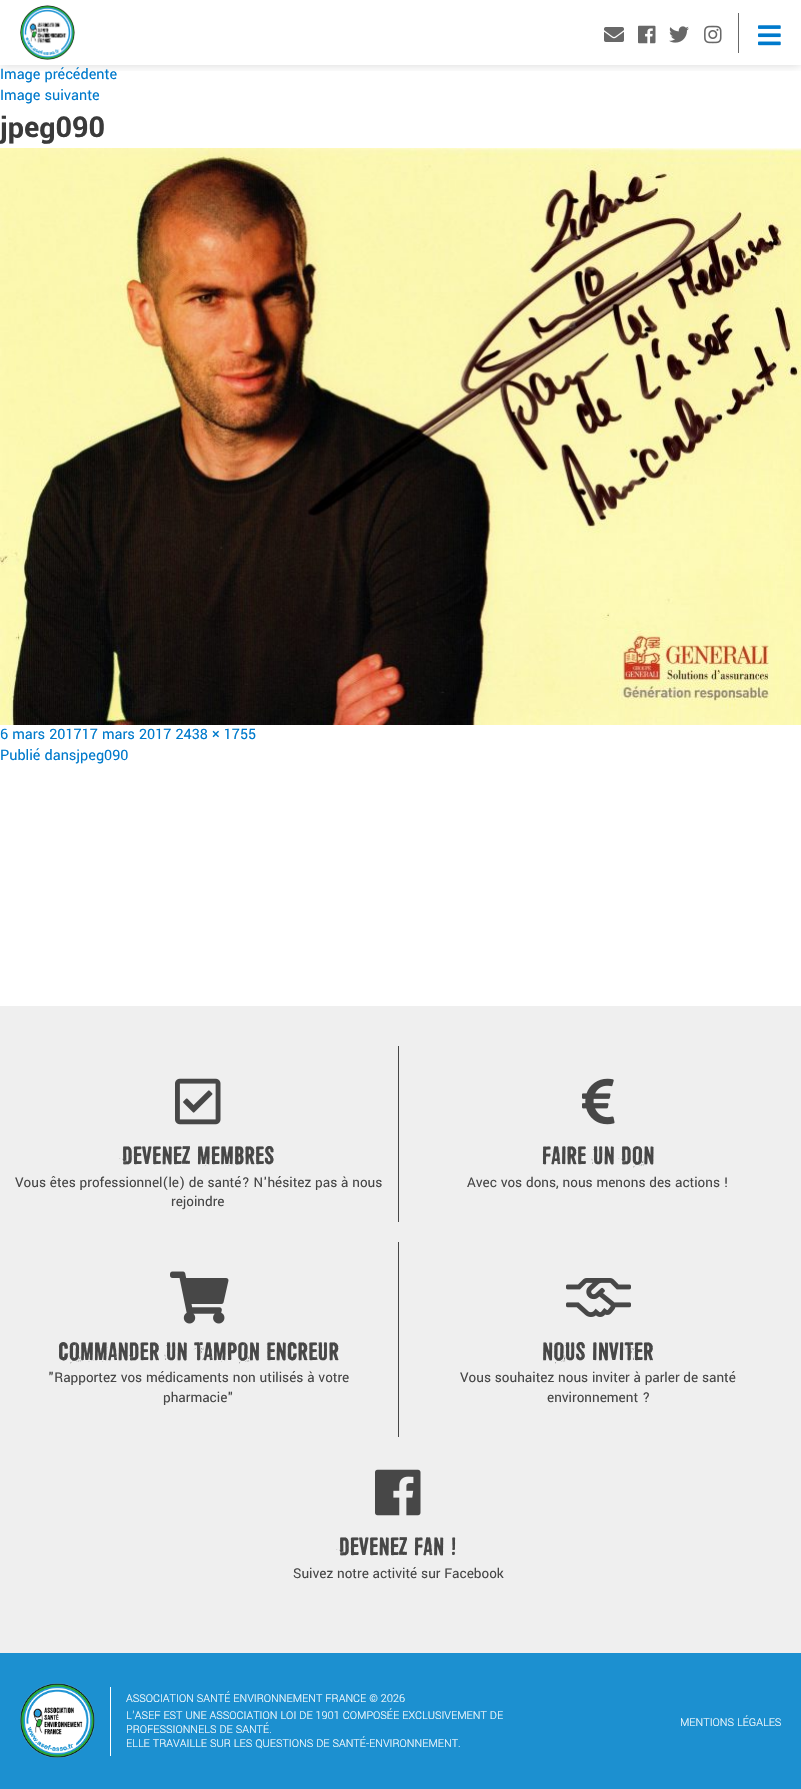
static SkFont makeFont(const char* family, int weight, float size, bool italic = false) {
  SkFontStyle style(weight, SkFontStyle::kNormal_Width,
    italic ? SkFontStyle::kItalic_Slant : SkFontStyle::kUpright_Slant);
  SkFont result(fontMgr->matchFamilyStyle(family, style), size);
  result.setSubpixel(true);
  return result;
}

static void text(SkCanvas* c, const char* s, float x, float y, const SkFont& font, SkColor color) {
  SkPaint ink(SkColor4f::FromColor(color));
  ink.setAntiAlias(true);
  c->drawString(s, x, y, font, ink);
}

static void box(SkCanvas* c, float l, float t, float r, float b, SkColor color) {
  SkPaint ink(SkColor4f::FromColor(color));
  ink.setAntiAlias(true);
  c->drawRect(SkRect::MakeLTRB(l, t, r, b), ink);
}

static void picture(SkCanvas* c, const char* path, float l, float t, float r, float b) {
  auto image = SkImages::DeferredFromEncodedData(SkData::MakeFromFileName(path));
  c->drawImageRect(image, SkRect::MakeLTRB(l, t, r, b), SkSamplingOptions());
}

void draw(SkCanvas* c) {
  SkPaint paint;
  paint.setAntiAlias(true);
  c->clear(0xffffffff);
  c->save();
  c->clipRect(SkRect::MakeLTRB(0, 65, 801, 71));
  paint.setColor(0x33323232);
  paint.setMaskFilter(SkMaskFilter::MakeBlur(kNormal_SkBlurStyle, 5));
  c->drawRect(SkRect::MakeLTRB(0, 0, 801, 65), paint);
  paint.setMaskFilter(nullptr);
  c->restore();
  picture(c, "img_01.png", 20, 5, 75, 60);
  paint.setStyle(SkPaint::kStroke_Style);
  paint.setStrokeWidth(5);
  paint.setColor(0xffffffff);
  c->drawCircle(47.5f, 32.5f, 30, paint);
  picture(c, "img_02.png", 604, 27, 624, 42);
  picture(c, "img_03.png", 638, 25, 656, 44);
  picture(c, "img_04.png", 669, 26, 689, 43);
  picture(c, "img_05.png", 704, 25, 722, 44);
  box(c, 738, 13, 739, 53, 0xff686868);
  picture(c, "img_06.png", 758, 25, 781, 46);
  SkFont face1 = makeFont("Yantramanav", 400, 16);
  text(c, "Image précédente", 0, 79, face1, 0xff007acc);
  text(c, "Image suivante", 0, 100, face1, 0xff007acc);
  SkFont face2 = makeFont("Yantramanav", 700, 32);
  text(c, "jpeg090", 0, 137, face2, 0xff3a3a3a);
  picture(c, "img_07.png", 0, 148, 801, 725);
  text(c, "6 mars 201717 mars 2017 2438 × 1755", 0, 739, face1, 0xff007acc);
  text(c, "Publié dansjpeg090", 0, 760, face1, 0xff007acc);
  box(c, 0, 1006, 801, 1653, 0xffefefef);
  picture(c, "img_08.png", 175, 1078, 221, 1125);
  SkFont face3 = makeFont("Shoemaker", 400, 25);
  text(c, "DEVENEZ MEMBRES", 122, 1164, face3, 0xff474747);
  SkFont face4 = makeFont("Yantramanav", 400, 15);
  text(c, "Vous êtes professionnel(le) de santé? N'hésitez pas à nous", 15, 1187, face4, 0xff474747);
  text(c, "rejoindre", 171, 1206, face4, 0xff474747);
  box(c, 398, 1046, 399, 1222, 0xff474747);
  picture(c, "img_09.png", 582, 1078, 615, 1125);
  text(c, "FAIRE UN DON", 542, 1164, face3, 0xff474747);
  text(c, "Avec vos dons, nous menons des actions !", 467, 1187, face4, 0xff474747);
  picture(c, "img_10.png", 170, 1271, 229, 1324);
  text(c, "COMMANDER UN TAMPON ENCREUR", 58, 1360, face3, 0xff474747);
  text(c, "\"Rapportez vos médicaments non utilisés à votre", 48, 1382, face4, 0xff474747);
  text(c, "pharmacie\"", 163, 1402, face4, 0xff474747);
  box(c, 398, 1242, 399, 1437, 0xff474747);
  picture(c, "img_11.png", 566, 1278, 631, 1317);
  text(c, "NOUS INVITER", 542, 1360, face3, 0xff474747);
  text(c, "Vous souhaitez nous inviter à parler de santé", 460, 1382, face4, 0xff474747);
  text(c, "environnement ?", 547, 1402, face4, 0xff474747);
  picture(c, "img_12.png", 375, 1469, 421, 1516);
  text(c, "DEVENEZ FAN !", 339, 1555, face3, 0xff474747);
  text(c, "Suivez notre activité sur Facebook", 293, 1578, face4, 0xff474747);
  box(c, 0, 1653, 801, 1789, 0xff1c90d0);
  picture(c, "img_13.png", 20, 1683, 95, 1758);
  box(c, 110, 1687, 111, 1756, 0xffffffff);
  SkFont face5 = makeFont("Yantramanav", 300, 12);
  text(c, "ASSOCIATION SANTÉ ENVIRONNEMENT FRANCE © 2026", 126, 1702, face5, 0xffffffff);
  text(c, "L'ASEF EST UNE ASSOCIATION LOI DE 1901 COMPOSÉE EXCLUSIVEMENT DE", 126, 1719, face5, 0xffffffff);
  text(c, "PROFESSIONNELS DE SANTÉ.", 126, 1733, face5, 0xffffffff);
  text(c, "ELLE TRAVAILLE SUR LES QUESTIONS DE SANTÉ-ENVIRONNEMENT.", 126, 1747, face5, 0xffffffff);
  text(c, "MENTIONS LÉGALES", 680, 1726, face5, 0xffffffff);
}
